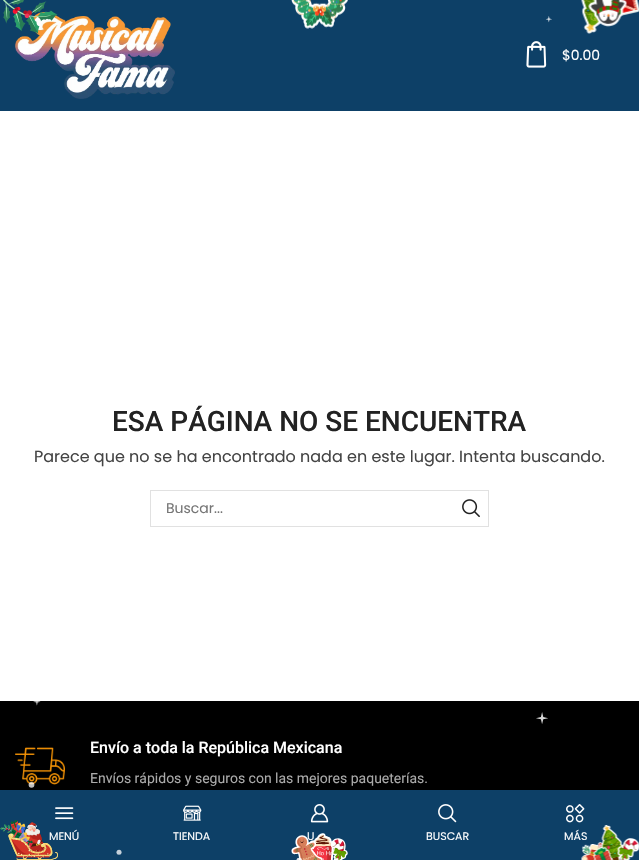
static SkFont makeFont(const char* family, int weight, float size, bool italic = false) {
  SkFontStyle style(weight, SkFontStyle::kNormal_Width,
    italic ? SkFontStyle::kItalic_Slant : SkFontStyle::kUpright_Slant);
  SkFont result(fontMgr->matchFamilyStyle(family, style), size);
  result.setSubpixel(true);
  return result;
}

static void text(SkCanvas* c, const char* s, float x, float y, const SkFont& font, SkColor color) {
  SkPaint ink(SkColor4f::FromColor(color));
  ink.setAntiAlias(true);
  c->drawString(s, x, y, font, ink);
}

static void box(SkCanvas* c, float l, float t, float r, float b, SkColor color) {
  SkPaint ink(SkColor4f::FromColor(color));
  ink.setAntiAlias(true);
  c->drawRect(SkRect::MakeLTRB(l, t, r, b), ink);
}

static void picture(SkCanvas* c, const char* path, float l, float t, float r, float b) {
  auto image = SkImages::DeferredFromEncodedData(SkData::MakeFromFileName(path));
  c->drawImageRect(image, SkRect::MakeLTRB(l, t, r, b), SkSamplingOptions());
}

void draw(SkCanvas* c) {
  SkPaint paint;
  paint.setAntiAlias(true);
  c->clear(0xffffffff);
  box(c, 0, 0, 639, 111, 0xff0d4067);
  picture(c, "img_08.png", 15, 12, 175, 99);
  picture(c, "img_01.png", 3, 0, 58, 34);
  picture(c, "img_02.png", 291, 0, 348, 29);
  picture(c, "img_03.png", 581, 0, 639, 34);
  box(c, 0, 701, 639, 790, 0xff000000);
  picture(c, "img_16.png", 15, 747, 65, 785);
  paint.setColor(0x26000000);
  paint.setMaskFilter(SkMaskFilter::MakeBlur(kNormal_SkBlurStyle, 6));
  c->drawRect(SkRect::MakeLTRB(2, 790, 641, 860), paint);
  paint.setMaskFilter(nullptr);
  box(c, 0, 790, 639, 860, 0xff0d4067);
  SkFont face1 = makeFont("Poppins", 400, 11);
  text(c, "MENÚ", 49, 840, face1, 0xffffffff);
  picture(c, "img_04.png", 0, 820, 58, 860);
  text(c, "U", 307, 840, face1, 0xffffffff);
  picture(c, "img_05.png", 291, 833, 348, 860);
  text(c, "MÁS", 564, 840, face1, 0xffffffff);
  picture(c, "img_06.png", 581, 825, 639, 860);
  picture(c, "img_09.png", 526, 41, 547, 68);
  SkFont face2 = makeFont("Roboto", 500, 28);
  text(c, "ESA PÁGINA NO SE ENCUENTRA", 112, 431, face2, 0xff222222);
  SkFont face3 = makeFont("Poppins", 400, 16);
  text(c, "Parece que no se ha encontrado nada en este lugar. Intenta buscando.", 34, 462, face3, 0xff444444);
  paint.setStyle(SkPaint::kStroke_Style);
  paint.setStrokeWidth(1);
  paint.setColor(0xffe1e1e1);
  c->drawRect(SkRect::MakeLTRB(150.5f, 490.5f, 488.5f, 526.5f), paint);
  SkFont face4 = makeFont("Poppins", 400, 14);
  text(c, "Buscar...", 166, 513, face4, 0xff757575);
  picture(c, "img_10.png", 462, 499, 480, 518);
  picture(c, "img_11.png", 55, 807, 74, 820);
  picture(c, "img_12.png", 183, 805, 202, 821);
  text(c, "TIENDA", 173, 840, face1, 0xffffffff);
  picture(c, "img_13.png", 310, 804, 329, 823);
  picture(c, "img_14.png", 438, 804, 457, 823);
  text(c, "BUSCAR", 426, 840, face1, 0xffffffff);
  SkFont face5 = makeFont("Roboto", 500, 16);
  text(c, "Envío a toda la República Mexicana", 90, 753, face5, 0xffffffff);
  SkFont face6 = makeFont("Roboto", 400, 14);
  text(c, "Envíos rápidos y seguros con las mejores paqueterías.", 90, 783, face6, 0xffaaaaaa);
  picture(c, "img_07.png", 28, 16, 552, 860);
  text(c, "$0.00", 562, 60, face4, 0xffffffff);
  picture(c, "img_15.png", 566, 804, 585, 823);
}
